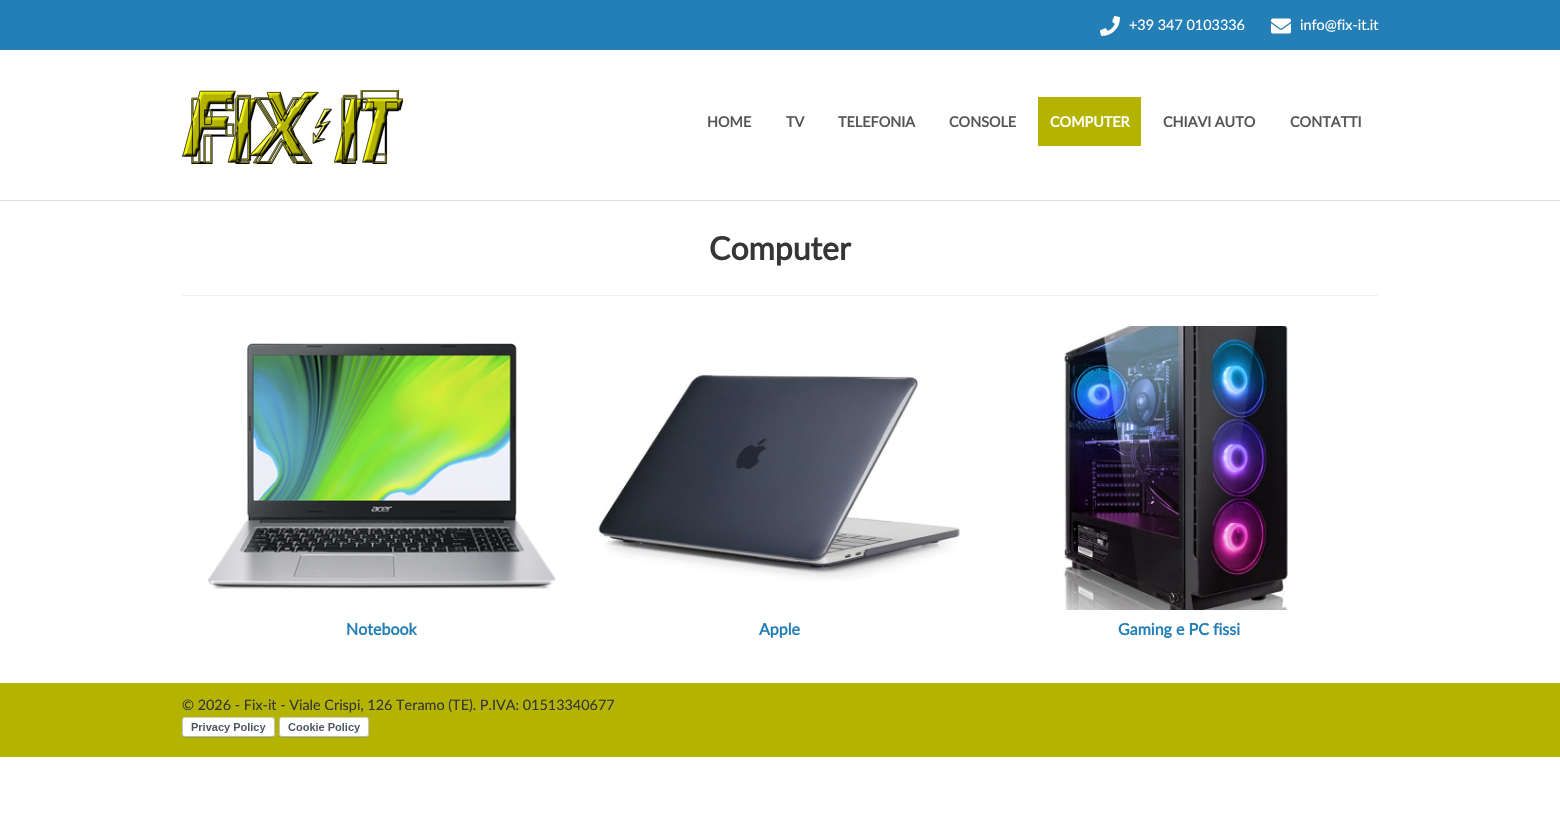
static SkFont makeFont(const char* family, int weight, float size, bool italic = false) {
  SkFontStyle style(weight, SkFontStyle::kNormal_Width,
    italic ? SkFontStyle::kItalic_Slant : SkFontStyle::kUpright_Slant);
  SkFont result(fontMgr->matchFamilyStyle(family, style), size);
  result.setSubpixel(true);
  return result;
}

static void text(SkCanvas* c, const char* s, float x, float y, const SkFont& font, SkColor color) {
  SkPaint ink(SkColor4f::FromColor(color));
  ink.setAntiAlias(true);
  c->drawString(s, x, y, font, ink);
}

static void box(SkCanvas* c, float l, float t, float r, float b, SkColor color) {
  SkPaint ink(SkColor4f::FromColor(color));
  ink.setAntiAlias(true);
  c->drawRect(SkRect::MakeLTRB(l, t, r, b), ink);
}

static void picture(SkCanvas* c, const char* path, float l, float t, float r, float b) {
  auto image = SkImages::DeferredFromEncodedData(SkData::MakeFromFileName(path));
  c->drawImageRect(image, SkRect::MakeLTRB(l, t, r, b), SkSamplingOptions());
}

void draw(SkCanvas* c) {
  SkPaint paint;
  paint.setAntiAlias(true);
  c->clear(0xffffffff);
  box(c, 0, 0, 1560, 50, 0xff237fb5);
  picture(c, "img_01.png", 1100, 16, 1120, 36);
  SkFont face1 = makeFont("Lato", 400, 14.4f);
  text(c, "+39 347 0103336", 1129, 30, face1, 0xffffffff);
  picture(c, "img_02.png", 1271, 18, 1291, 34);
  text(c, "info@fix-it.it", 1300, 30, face1, 0xffffffff);
  box(c, 0, 200, 1560, 201, 0xffdddddd);
  picture(c, "img_03.png", 182, 90, 403, 164);
  SkFont face2 = makeFont("Lato", 700, 14.4f);
  text(c, "HOME", 707, 127, face2, 0xff555555);
  text(c, "TV", 786, 127, face2, 0xff555555);
  text(c, "TELEFONIA", 838, 127, face2, 0xff555555);
  text(c, "CONSOLE", 949, 127, face2, 0xff555555);
  box(c, 1038, 97, 1141, 146, 0xffb4b400);
  text(c, "COMPUTER", 1050, 127, face2, 0xffffffff);
  text(c, "CHIAVI AUTO", 1163, 127, face2, 0xff555555);
  text(c, "CONTATTI", 1290, 127, face2, 0xff555555);
  box(c, 182, 295, 1378, 296, 0xffeeeeee);
  SkFont face3 = makeFont("Lato", 700, 32);
  text(c, "Computer", 709, 260, face3, 0xff373536);
  picture(c, "img_04.png", 207, 343, 556, 589);
  SkFont face4 = makeFont("Lato", 700, 16);
  text(c, "Notebook", 346, 635, face4, 0xff237fb5);
  picture(c, "img_05.png", 598, 373, 961, 581);
  text(c, "Apple", 759, 635, face4, 0xff237fb5);
  picture(c, "img_06.png", 1063, 326, 1289, 610);
  text(c, "Gaming e PC fissi", 1118, 635, face4, 0xff237fb5);
  box(c, 0, 683, 1560, 757, 0xffb4b400);
  text(c, "© 2026 - Fix-it - Viale Crispi, 126 Teramo (TE). P.IVA: 01513340677", 182, 710, face1, 0xff373536);
  picture(c, "img_07.png", 182, 717, 275, 738);
  picture(c, "img_08.png", 279, 717, 369, 738);
}
